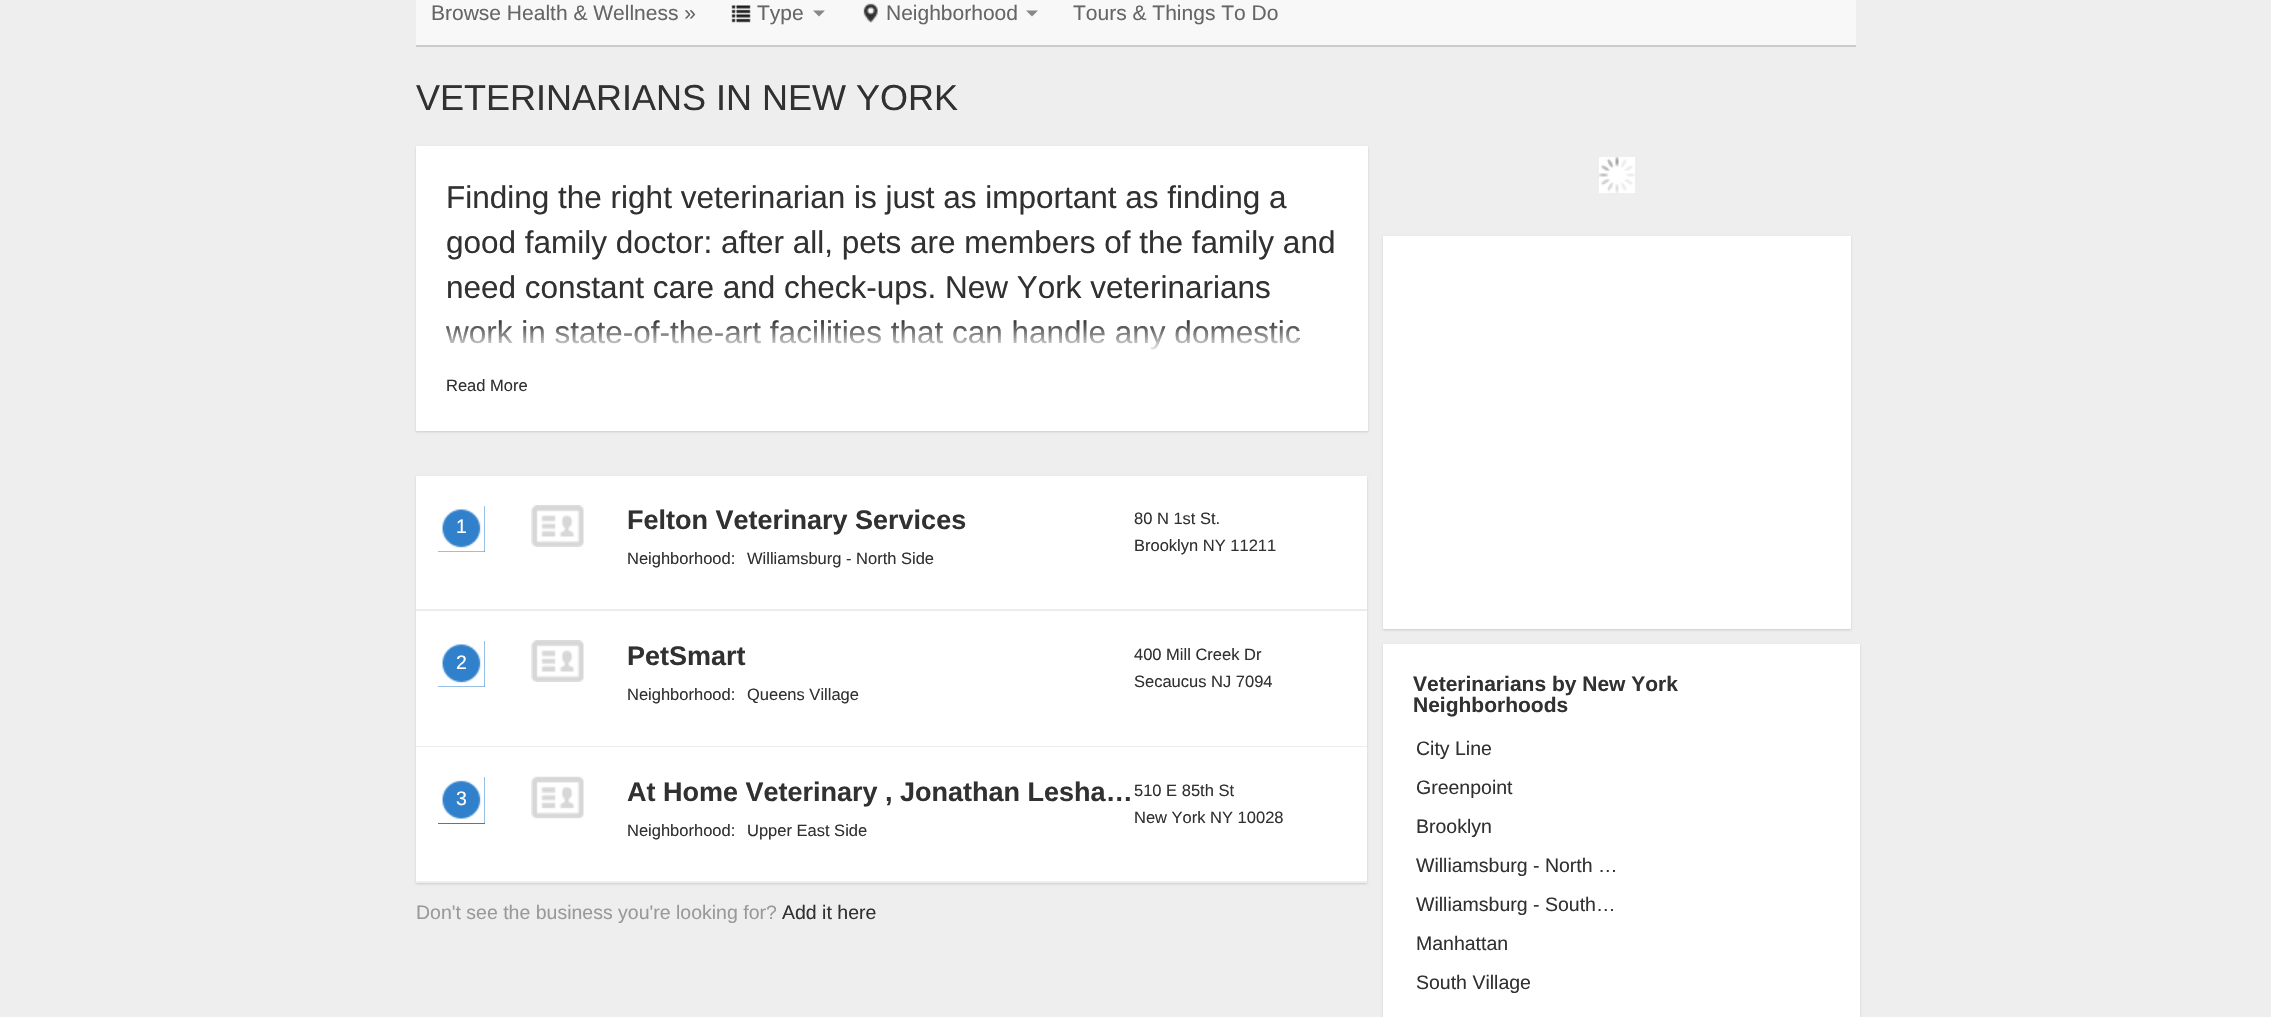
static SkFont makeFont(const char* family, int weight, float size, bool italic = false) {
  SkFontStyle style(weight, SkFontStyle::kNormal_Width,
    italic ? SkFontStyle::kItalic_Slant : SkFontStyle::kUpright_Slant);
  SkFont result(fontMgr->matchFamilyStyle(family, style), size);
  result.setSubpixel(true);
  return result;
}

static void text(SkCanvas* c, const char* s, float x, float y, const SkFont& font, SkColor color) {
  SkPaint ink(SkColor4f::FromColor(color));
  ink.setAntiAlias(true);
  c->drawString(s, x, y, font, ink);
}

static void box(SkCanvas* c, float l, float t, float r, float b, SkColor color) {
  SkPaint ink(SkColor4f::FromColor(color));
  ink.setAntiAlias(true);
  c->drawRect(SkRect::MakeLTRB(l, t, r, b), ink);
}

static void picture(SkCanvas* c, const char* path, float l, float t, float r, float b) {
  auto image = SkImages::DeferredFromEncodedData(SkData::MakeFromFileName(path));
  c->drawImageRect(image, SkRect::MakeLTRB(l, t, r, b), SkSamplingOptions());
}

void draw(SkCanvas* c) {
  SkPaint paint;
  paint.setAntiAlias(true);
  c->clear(0xffeeeeee);
  box(c, 416, 0, 1856, 45, 0xfff8f8f8);
  box(c, 416, 45, 1856, 47, 0xffcbcbcb);
  SkFont face1 = makeFont("Liberation Sans", 400, 21);
  text(c, "Browse Health & Wellness »", 431, 20, face1, 0xff666666);
  picture(c, "img_01.png", 731, 5, 751, 23);
  text(c, "Type", 757, 20, face1, 0xff666666);
  paint.setColor(0xff888888);
  c->drawPath(SkPathBuilder().moveTo(813, 10.5f).lineTo(825, 10.5f).lineTo(819, 16.5f).close().detach(), paint);
  picture(c, "img_02.png", 863, 3, 878, 23);
  text(c, "Neighborhood", 886, 20, face1, 0xff666666);
  c->drawPath(SkPathBuilder().moveTo(1026, 10.5f).lineTo(1038, 10.5f).lineTo(1032, 16.5f).close().detach(), paint);
  text(c, "Tours & Things To Do", 1073, 20, face1, 0xff666666);
  SkFont face2 = makeFont("Liberation Sans", 400, 36);
  text(c, "VETERINARIANS IN NEW YORK", 416, 110, face2, 0xff313131);
  paint.setColor(0xffcbcbcb);
  paint.setMaskFilter(SkMaskFilter::MakeBlur(kNormal_SkBlurStyle, 1));
  c->drawRect(SkRect::MakeLTRB(416, 147, 1368, 432), paint);
  paint.setMaskFilter(nullptr);
  box(c, 416, 146, 1368, 431, 0xffffffff);
  SkFont face3 = makeFont("Liberation Sans", 400, 31.5f);
  text(c, "Finding the right veterinarian is just as important as finding a", 446, 208, face3, 0xff313131);
  text(c, "good family doctor: after all, pets are members of the family and", 446, 253, face3, 0xff313131);
  text(c, "need constant care and check-ups. New York veterinarians", 446, 298, face3, 0xff313131);
  text(c, "work in state-of-the-art facilities that can handle any domestic", 446, 343, face3, 0xff313131);
  picture(c, "img_03.png", 446, 320, 1299, 370);
  SkFont face4 = makeFont("Liberation Sans", 400, 16.5f);
  text(c, "Read More", 446, 391, face4, 0xff313131);
  paint.setMaskFilter(SkMaskFilter::MakeBlur(kNormal_SkBlurStyle, 1));
  c->drawRect(SkRect::MakeLTRB(416, 477, 1367, 612), paint);
  paint.setMaskFilter(nullptr);
  box(c, 416, 476, 1367, 609, 0xffffffff);
  box(c, 416, 609, 1367, 611, 0xffeeeeee);
  box(c, 438, 506, 485, 552, 0xff3080cb);
  picture(c, "img_04.png", 438, 506, 485, 552);
  SkFont face5 = makeFont("Liberation Sans", 400, 19.5f);
  text(c, "1", 456, 533, face5, 0xffffffff);
  picture(c, "img_05.png", 531, 505, 584, 547);
  SkFont face6 = makeFont("Liberation Sans", 700, 27);
  text(c, "Felton Veterinary Services", 627, 529, face6, 0xff313131);
  text(c, "Neighborhood:", 627, 564, face4, 0xff313131);
  text(c, "Williamsburg - North Side", 747, 564, face4, 0xff313131);
  text(c, "80 N 1st St.", 1134, 524, face4, 0xff313131);
  text(c, "Brooklyn NY 11211", 1134, 551, face4, 0xff313131);
  paint.setMaskFilter(SkMaskFilter::MakeBlur(kNormal_SkBlurStyle, 1));
  c->drawRect(SkRect::MakeLTRB(416, 612, 1367, 749), paint);
  paint.setMaskFilter(nullptr);
  box(c, 416, 611, 1367, 746, 0xffffffff);
  box(c, 416, 746, 1367, 747, 0xffeeeeee);
  box(c, 438, 641, 485, 687, 0xff3080cb);
  picture(c, "img_04.png", 438, 641, 485, 687);
  text(c, "2", 456, 669, face5, 0xffffffff);
  picture(c, "img_05.png", 531, 640, 584, 682);
  text(c, "PetSmart", 627, 665, face6, 0xff313131);
  text(c, "Neighborhood:", 627, 700, face4, 0xff313131);
  text(c, "Queens Village", 747, 700, face4, 0xff313131);
  text(c, "400 Mill Creek Dr", 1134, 660, face4, 0xff313131);
  text(c, "Secaucus NJ 7094", 1134, 687, face4, 0xff313131);
  paint.setMaskFilter(SkMaskFilter::MakeBlur(kNormal_SkBlurStyle, 1));
  c->drawRect(SkRect::MakeLTRB(416, 749, 1367, 884), paint);
  paint.setMaskFilter(nullptr);
  box(c, 416, 747, 1367, 881, 0xffffffff);
  box(c, 416, 881, 1367, 883, 0xffeeeeee);
  box(c, 438, 777, 485, 824, 0xff3080cb);
  picture(c, "img_06.png", 438, 777, 485, 823);
  text(c, "3", 456, 805, face5, 0xffffffff);
  picture(c, "img_07.png", 531, 776, 584, 819);
  text(c, "At Home Veterinary , Jonathan Lesha…", 627, 801, face6, 0xff313131);
  text(c, "Neighborhood:", 627, 836, face4, 0xff313131);
  text(c, "Upper East Side", 747, 836, face4, 0xff313131);
  text(c, "510 E 85th St", 1134, 796, face4, 0xff313131);
  text(c, "New York NY 10028", 1134, 823, face4, 0xff313131);
  text(c, "Don't see the business you're looking for?", 416, 919, face5, 0xff999999);
  text(c, "Add it here", 782, 919, face5, 0xff313131);
  picture(c, "img_08.png", 1599, 157, 1635, 193);
  paint.setMaskFilter(SkMaskFilter::MakeBlur(kNormal_SkBlurStyle, 1));
  c->drawRect(SkRect::MakeLTRB(1383, 237, 1851, 630), paint);
  paint.setMaskFilter(nullptr);
  box(c, 1383, 236, 1851, 629, 0xffffffff);
  paint.setMaskFilter(SkMaskFilter::MakeBlur(kNormal_SkBlurStyle, 1));
  c->drawRect(SkRect::MakeLTRB(1383, 645, 1860, 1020), paint);
  paint.setMaskFilter(nullptr);
  box(c, 1383, 644, 1860, 1017, 0xffffffff);
  SkFont face7 = makeFont("Liberation Sans", 700, 21);
  text(c, "Veterinarians by New York", 1413, 691, face7, 0xff313131);
  text(c, "Neighborhoods", 1413, 712, face7, 0xff313131);
  text(c, "City Line", 1416, 755, face5, 0xff313131);
  text(c, "Greenpoint", 1416, 794, face5, 0xff313131);
  text(c, "Brooklyn", 1416, 833, face5, 0xff313131);
  text(c, "Williamsburg - North …", 1416, 872, face5, 0xff313131);
  text(c, "Williamsburg - South…", 1416, 911, face5, 0xff313131);
  text(c, "Manhattan", 1416, 950, face5, 0xff313131);
  text(c, "South Village", 1416, 989, face5, 0xff313131);
}
